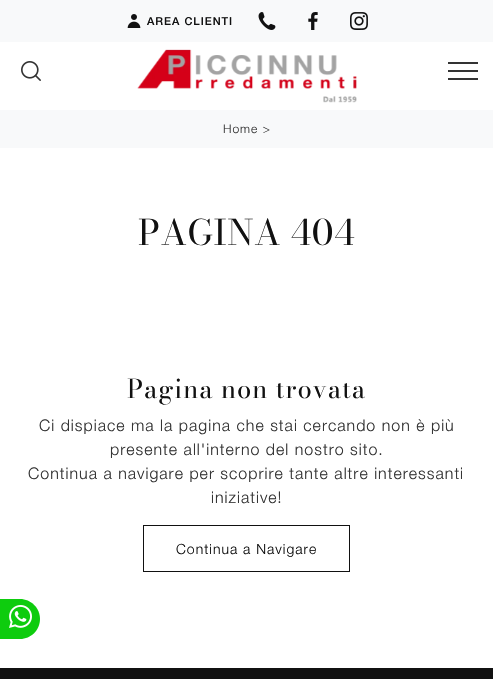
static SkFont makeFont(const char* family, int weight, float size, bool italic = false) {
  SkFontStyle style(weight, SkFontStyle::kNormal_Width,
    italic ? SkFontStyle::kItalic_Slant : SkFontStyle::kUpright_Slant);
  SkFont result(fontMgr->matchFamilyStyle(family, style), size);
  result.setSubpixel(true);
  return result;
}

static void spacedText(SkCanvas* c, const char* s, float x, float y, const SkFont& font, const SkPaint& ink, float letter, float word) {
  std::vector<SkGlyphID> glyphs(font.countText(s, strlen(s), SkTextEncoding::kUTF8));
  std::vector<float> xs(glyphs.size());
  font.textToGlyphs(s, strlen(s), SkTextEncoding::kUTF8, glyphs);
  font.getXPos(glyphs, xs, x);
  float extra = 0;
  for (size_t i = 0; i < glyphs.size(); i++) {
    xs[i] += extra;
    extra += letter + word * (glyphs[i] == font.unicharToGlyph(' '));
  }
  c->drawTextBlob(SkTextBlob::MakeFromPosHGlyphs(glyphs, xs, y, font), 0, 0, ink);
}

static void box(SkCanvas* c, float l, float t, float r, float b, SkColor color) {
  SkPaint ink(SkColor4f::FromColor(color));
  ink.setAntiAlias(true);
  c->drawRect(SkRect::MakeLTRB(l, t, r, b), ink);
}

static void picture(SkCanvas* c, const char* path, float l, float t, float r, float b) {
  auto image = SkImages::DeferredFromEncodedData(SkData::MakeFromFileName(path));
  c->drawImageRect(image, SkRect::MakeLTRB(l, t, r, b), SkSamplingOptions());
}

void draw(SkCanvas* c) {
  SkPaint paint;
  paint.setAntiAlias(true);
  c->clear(0xffffffff);
  box(c, 0, 0, 493, 42, 0xfff8f9fa);
  picture(c, "img_01.png", 127, 14, 141, 28);
  SkFont face1 = makeFont("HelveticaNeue", 500, 11);
  paint.setColor(0xff111111);
  spacedText(c, "AREA CLIENTI", 147, 25, face1, paint, 1, 0);
  picture(c, "img_02.png", 258, 12, 276, 30);
  picture(c, "img_03.png", 308, 12, 318, 30);
  picture(c, "img_04.png", 350, 12, 368, 30);
  picture(c, "img_05.png", 21, 61, 41, 81);
  picture(c, "img_06.png", 137, 49, 357, 103);
  box(c, 448, 62, 478, 64, 0xff333333);
  box(c, 448, 70, 478, 72, 0xff333333);
  box(c, 448, 78, 478, 80, 0xff333333);
  box(c, 0, 110, 493, 148, 0xfff8f9fa);
  SkFont face2 = makeFont("HelveticaNeue", 300, 12);
  paint.setColor(0xff333333);
  spacedText(c, "Home >", 223, 133, face2, paint, 1, 0);
  SkFont face3 = makeFont("Bodoni Moda", 400, 35);
  paint.setColor(0xff111111);
  spacedText(c, "PAGINA 404", 138, 245, face3, paint, 0.5f, 0);
  SkFont face4 = makeFont("Bodoni Moda", 400, 25.6f);
  spacedText(c, "Pagina non trovata", 127, 398, face4, paint, 1, 0);
  SkFont face5 = makeFont("HelveticaNeue", 300, 16);
  paint.setColor(0xff333333);
  spacedText(c, "Ci dispiace ma la pagina che stai cercando non è più", 39, 431, face5, paint, 1, 0);
  spacedText(c, "presente all'interno del nostro sito.", 110, 455, face5, paint, 1, 0);
  spacedText(c, "Continua a navigare per scoprire tante altre interessanti", 28, 479, face5, paint, 1, 0);
  spacedText(c, "iniziative!", 211, 503, face5, paint, 1, 0);
  paint.setStyle(SkPaint::kStroke_Style);
  paint.setStrokeWidth(1);
  paint.setColor(0xff111111);
  c->drawRect(SkRect::MakeLTRB(143.5f, 525.5f, 349.5f, 571.5f), paint);
  SkFont face6 = makeFont("HelveticaNeue", 300, 14);
  paint.setStyle(SkPaint::kFill_Style);
  spacedText(c, "Continua a Navigare", 176, 554, face6, paint, 1, 0);
  paint.setColor(0xff0ecc0e);
  c->drawPath(SkPathBuilder().moveTo(0, 599).lineTo(20, 599).cubicTo(31, 599, 40, 608, 40, 619).cubicTo(40, 630, 31, 639, 20, 639).lineTo(0, 639).close().detach(), paint);
  picture(c, "img_07.png", 9, 605, 32, 628);
  box(c, 0, 668, 493, 679, 0xff111111);
}
